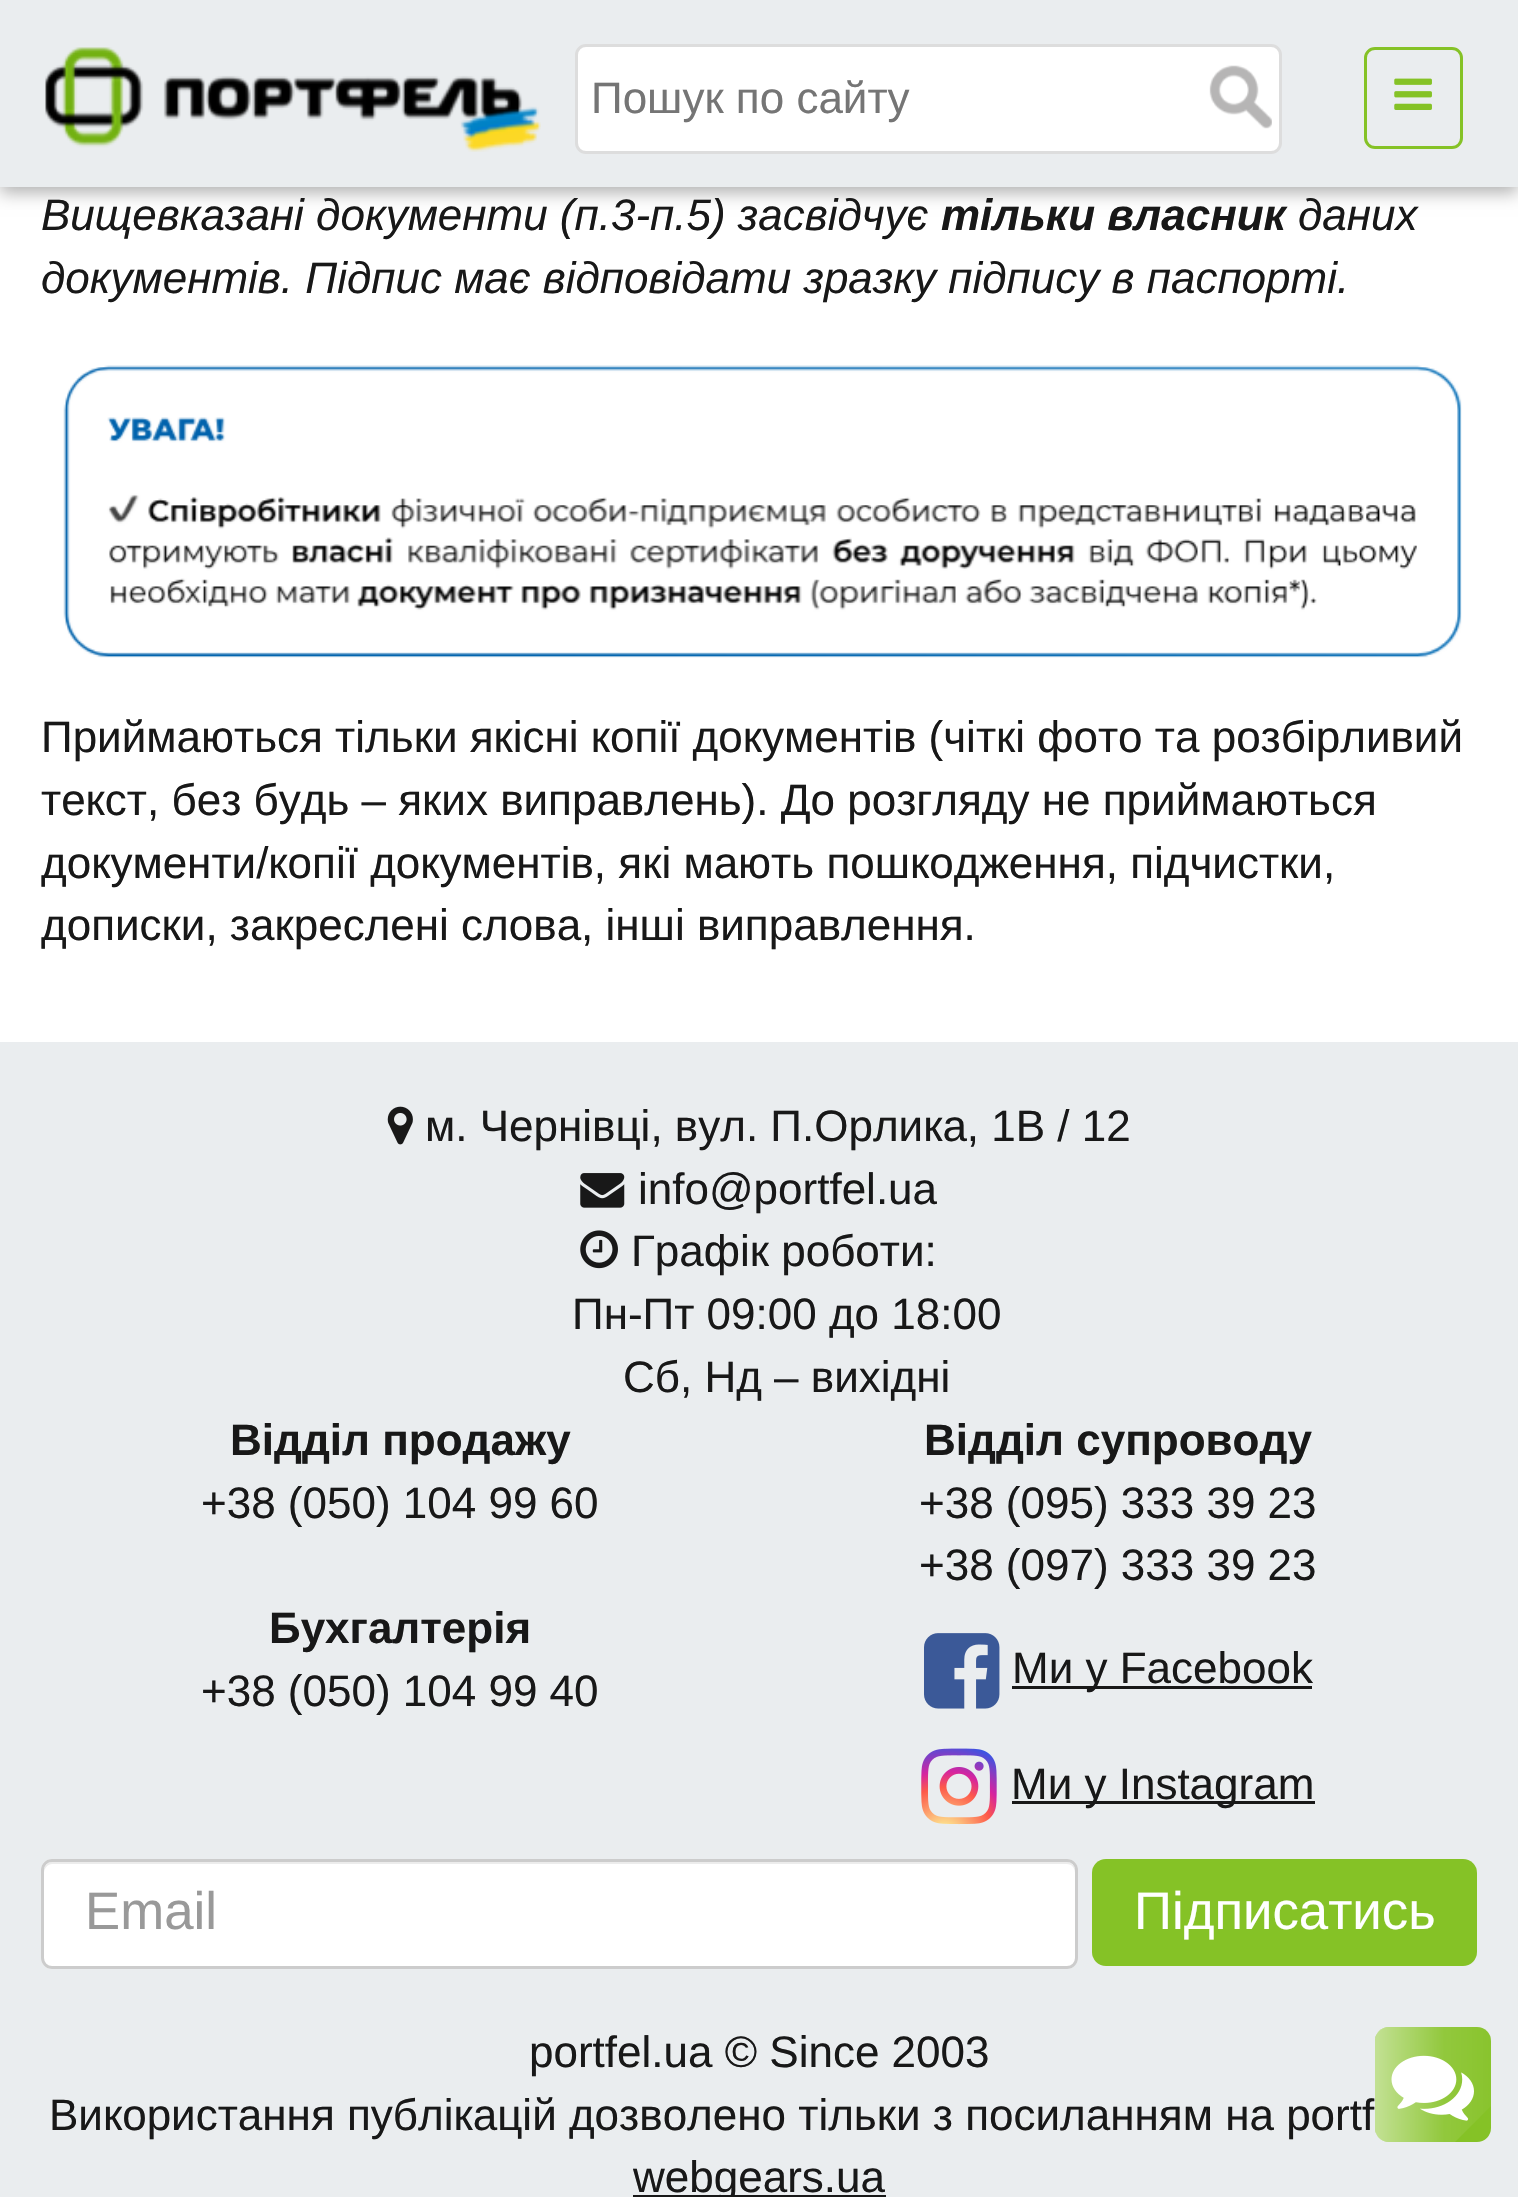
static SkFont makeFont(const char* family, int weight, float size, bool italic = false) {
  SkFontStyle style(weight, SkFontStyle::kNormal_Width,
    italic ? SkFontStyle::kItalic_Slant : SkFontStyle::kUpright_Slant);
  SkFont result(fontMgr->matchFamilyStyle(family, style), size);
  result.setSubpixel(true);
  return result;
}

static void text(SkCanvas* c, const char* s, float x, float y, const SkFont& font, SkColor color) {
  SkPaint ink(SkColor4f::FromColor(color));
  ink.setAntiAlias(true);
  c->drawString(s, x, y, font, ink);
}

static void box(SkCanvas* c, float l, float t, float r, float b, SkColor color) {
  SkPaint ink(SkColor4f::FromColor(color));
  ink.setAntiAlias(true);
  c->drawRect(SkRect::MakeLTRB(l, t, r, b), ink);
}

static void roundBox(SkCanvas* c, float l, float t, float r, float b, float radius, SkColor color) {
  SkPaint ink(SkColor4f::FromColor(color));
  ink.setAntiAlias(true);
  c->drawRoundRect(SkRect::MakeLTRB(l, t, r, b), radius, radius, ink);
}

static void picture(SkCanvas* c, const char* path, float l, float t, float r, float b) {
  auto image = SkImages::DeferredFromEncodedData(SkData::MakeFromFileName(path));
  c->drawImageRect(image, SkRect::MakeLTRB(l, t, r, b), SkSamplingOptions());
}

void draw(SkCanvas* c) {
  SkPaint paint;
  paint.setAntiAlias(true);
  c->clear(0xffffffff);
  paint.setColor(0x4d000000);
  paint.setMaskFilter(SkMaskFilter::MakeBlur(kNormal_SkBlurStyle, 8));
  c->drawRect(SkRect::MakeLTRB(0, 6, 1518, 193), paint);
  paint.setMaskFilter(nullptr);
  box(c, 0, 0, 1518, 187, 0xffeaedef);
  picture(c, "img_01.png", 45, 47, 541, 152);
  paint.setColor(0xffffffff);
  c->drawRoundRect(SkRect::MakeLTRB(576.5f, 45.5f, 1280.5f, 152.5f), 9.5f, 9.5f, paint);
  paint.setStyle(SkPaint::kStroke_Style);
  paint.setStrokeWidth(3);
  paint.setColor(0xffdddddd);
  c->drawRoundRect(SkRect::MakeLTRB(576.5f, 45.5f, 1280.5f, 152.5f), 9.5f, 9.5f, paint);
  SkFont face1 = makeFont("Liberation Sans", 400, 44);
  text(c, "Пошук по сайту", 591, 113, face1, 0xff757575);
  picture(c, "img_02.png", 1209, 65, 1272, 129);
  paint.setColor(0xff85c226);
  c->drawRoundRect(SkRect::MakeLTRB(1365.5f, 48.5f, 1461.5f, 147.5f), 9.5f, 9.5f, paint);
  picture(c, "img_03.png", 1394, 78, 1432, 110);
  SkFont face2 = makeFont("Liberation Sans", 400, 44, true);
  text(c, "Вищевказані документи (п.3-п.5) засвідчує", 41, 230, face2, 0xff181818);
  SkFont face3 = makeFont("Liberation Sans", 700, 44, true);
  text(c, "тільки власник", 941, 230, face3, 0xff181818);
  text(c, "даних", 1298, 230, face2, 0xff181818);
  text(c, "документів. Підпис має відповідати зразку підпису в паспорті.", 41, 293, face2, 0xff181818);
  picture(c, "img_04.png", 63, 365, 1462, 658);
  text(c, "Приймаються тільки якісні копії документів (чіткі фото та розбірливий", 41, 752, face1, 0xff181818);
  text(c, "текст, без будь – яких виправлень). До розгляду не приймаються", 41, 815, face1, 0xff181818);
  text(c, "документи/копії документів, які мають пошкодження, підчистки,", 41, 878, face1, 0xff181818);
  text(c, "дописки, закреслені слова, інші виправлення.", 41, 940, face1, 0xff181818);
  box(c, 0, 1042, 1518, 2197, 0xffeaedef);
  picture(c, "img_05.png", 387, 1106, 413, 1145);
  text(c, "м. Чернівці, вул. П.Орлика, 1В / 12", 425, 1141, face1, 0xff181818);
  picture(c, "img_06.png", 580, 1173, 625, 1208);
  text(c, "info@portfel.ua", 638, 1204, face1, 0xff181818);
  picture(c, "img_07.png", 580, 1230, 618, 1269);
  text(c, "Графік роботи:", 631, 1266, face1, 0xff181818);
  text(c, "Пн-Пт 09:00 до 18:00", 572, 1329, face1, 0xff181818);
  text(c, "Сб, Нд – вихідні", 623, 1392, face1, 0xff181818);
  SkFont face4 = makeFont("Liberation Sans", 700, 44);
  text(c, "Відділ продажу", 230, 1455, face4, 0xff181818);
  text(c, "+38 (050) 104 99 60", 201, 1518, face1, 0xff181818);
  text(c, "Відділ супроводу", 924, 1455, face4, 0xff181818);
  text(c, "+38 (095) 333 39 23", 919, 1518, face1, 0xff181818);
  text(c, "+38 (097) 333 39 23", 919, 1580, face1, 0xff181818);
  text(c, "Бухгалтерія", 269, 1643, face4, 0xff181818);
  text(c, "+38 (050) 104 99 40", 201, 1706, face1, 0xff181818);
  picture(c, "img_08.png", 924, 1633, 1000, 1709);
  box(c, 1012, 1686, 1312, 1689, 0xff181818);
  text(c, "Ми у Facebook", 1012, 1683, face1, 0xff181818);
  picture(c, "img_09.png", 921, 1748, 997, 1825);
  box(c, 1012, 1801, 1315, 1804, 0xff181818);
  text(c, "Ми у Instagram", 1011, 1799, face1, 0xff181818);
  roundBox(c, 41, 1859, 1078, 1969, 11, 0xffffffff);
  paint.setStyle(SkPaint::kFill_Style);
  paint.setColor(0xffececec);
  c->drawPath(SkPathBuilder().moveTo(52, 1864).lineTo(1067, 1864).cubicTo(1072, 1864, 1075, 1868, 1075, 1873).lineTo(1075, 1870).cubicTo(1075, 1866, 1071, 1862, 1067, 1862).lineTo(52, 1862).cubicTo(48, 1862, 44, 1866, 44, 1870).lineTo(44, 1873).cubicTo(44, 1868, 48, 1864, 52, 1864).close().detach(), paint);
  paint.setStyle(SkPaint::kStroke_Style);
  paint.setColor(0xffcccccc);
  c->drawRoundRect(SkRect::MakeLTRB(42.5f, 1860.5f, 1076.5f, 1967.5f), 9.5f, 9.5f, paint);
  SkFont face5 = makeFont("Liberation Sans", 400, 52.75f);
  text(c, "Email", 85, 1929, face5, 0xff999999);
  roundBox(c, 1092, 1859, 1477, 1966, 14, 0xff85c226);
  text(c, "Підписатись", 1134, 1929, face5, 0xffffffff);
  text(c, "portfel.ua © Since 2003", 529, 2067, face1, 0xff181818);
  text(c, "Використання публікацій дозволено тільки з посиланням на portf", 49, 2130, face1, 0xff181818);
  box(c, 633, 2195, 886, 2197, 0xff181818);
  text(c, "webgears.ua", 633, 2192, face1, 0xff181818);
  roundBox(c, 1375, 2027, 1491, 2142, 14, 0xff85c226);
  picture(c, "img_10.png", 1391, 2055, 1474, 2121);
  paint.setStyle(SkPaint::kFill_Style);
  {
    const SkColor colors[] = {0x00ffffff, 0x1affffff, 0x80ffffff, 0x1affffff, 0x00ffffff};
    const float stops[] = {0, 0.25f, 0.5f, 0.75f, 1};
    const SkPoint ends[] = {{1238, 2085}, {1513, 2085}};
    paint.setShader(SkGradientShader::MakeLinear(ends, colors, stops, 5, SkTileMode::kClamp));
    paint.setAlpha(255);
  }
  c->drawPath(SkPathBuilder().moveTo(1389, 2027).cubicTo(1381, 2027, 1375, 2033, 1375, 2041).lineTo(1375, 2128).cubicTo(1375, 2136, 1381, 2142, 1389, 2142).lineTo(1455, 2142).lineTo(1491, 2106).lineTo(1491, 2041).cubicTo(1491, 2033, 1485, 2027, 1477, 2027).close().detach(), paint);
}
